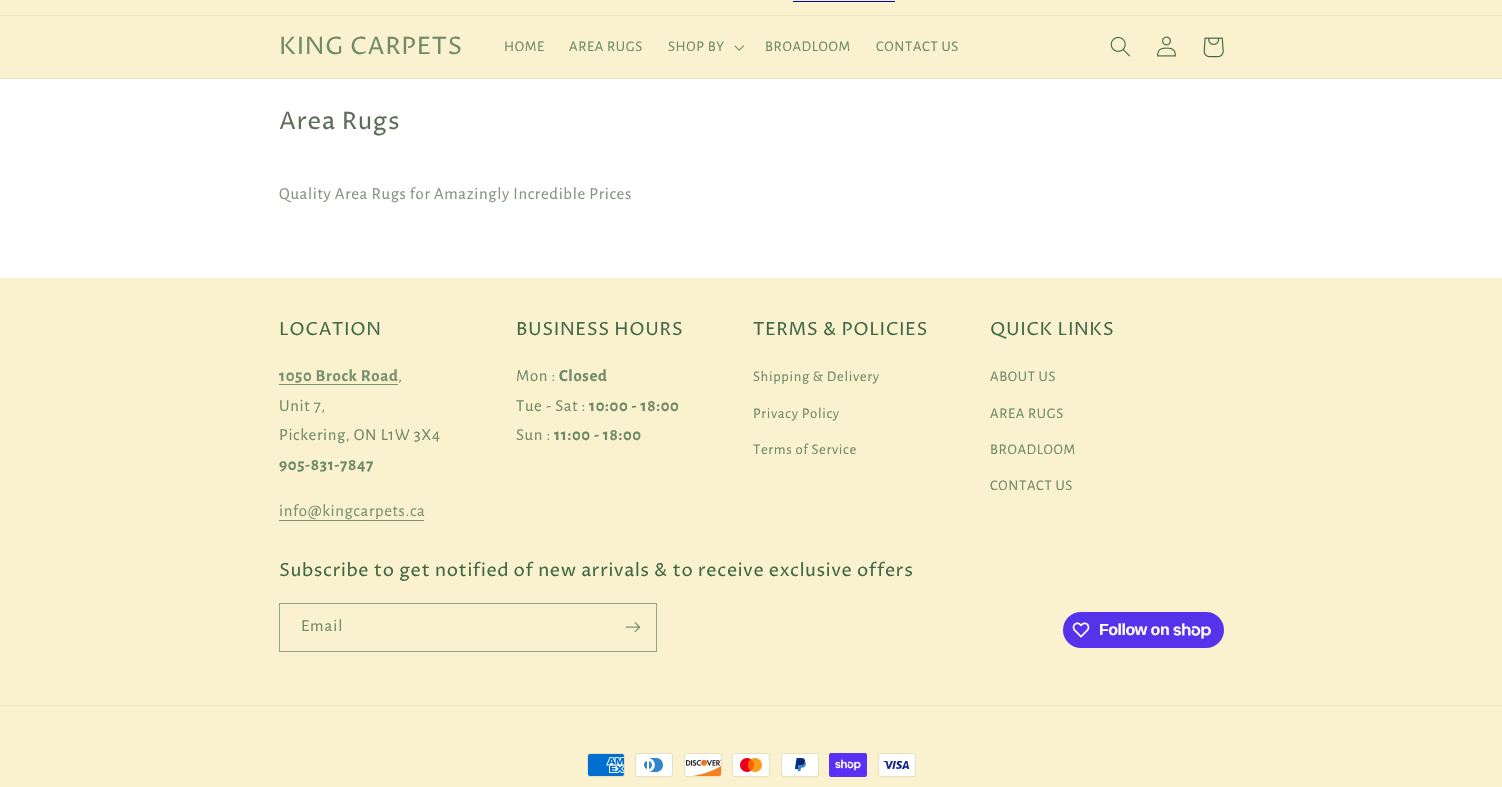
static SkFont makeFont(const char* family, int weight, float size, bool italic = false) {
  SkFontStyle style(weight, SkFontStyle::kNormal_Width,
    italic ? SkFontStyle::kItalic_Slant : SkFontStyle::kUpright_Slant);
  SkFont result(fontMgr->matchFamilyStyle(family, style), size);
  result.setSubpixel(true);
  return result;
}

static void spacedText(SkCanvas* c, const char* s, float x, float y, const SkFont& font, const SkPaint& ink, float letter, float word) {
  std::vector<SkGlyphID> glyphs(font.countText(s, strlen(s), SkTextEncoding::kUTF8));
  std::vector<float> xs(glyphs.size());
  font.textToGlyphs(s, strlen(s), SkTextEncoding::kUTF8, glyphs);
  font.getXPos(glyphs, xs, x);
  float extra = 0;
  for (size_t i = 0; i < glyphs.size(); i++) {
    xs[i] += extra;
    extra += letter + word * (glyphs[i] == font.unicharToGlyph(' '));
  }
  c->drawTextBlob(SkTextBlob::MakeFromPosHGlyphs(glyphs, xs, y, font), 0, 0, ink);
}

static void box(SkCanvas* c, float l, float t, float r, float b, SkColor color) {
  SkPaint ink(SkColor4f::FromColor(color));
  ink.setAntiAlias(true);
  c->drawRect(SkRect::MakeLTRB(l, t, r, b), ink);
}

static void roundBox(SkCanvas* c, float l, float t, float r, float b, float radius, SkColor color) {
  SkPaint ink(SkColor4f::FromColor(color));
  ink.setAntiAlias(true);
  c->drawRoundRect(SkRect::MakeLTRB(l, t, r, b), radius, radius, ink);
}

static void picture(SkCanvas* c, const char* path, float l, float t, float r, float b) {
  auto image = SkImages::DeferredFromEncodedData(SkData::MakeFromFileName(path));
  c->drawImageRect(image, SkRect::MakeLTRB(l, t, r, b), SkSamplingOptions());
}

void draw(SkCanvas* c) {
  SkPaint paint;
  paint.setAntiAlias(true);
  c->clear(0xffffffff);
  box(c, 0, 0, 1502, 15, 0xfffaf1cf);
  box(c, 0, 15, 1502, 16, 0xffebe6c4);
  box(c, 793, 1, 895, 2, 0xff0000ee);
  box(c, 0, 16, 1502, 78, 0xfffaf1cf);
  box(c, 0, 78, 1502, 79, 0xffebe6c4);
  SkFont face1 = makeFont("Proza Libre", 400, 24);
  paint.setColor(0xff6e8a67);
  spacedText(c, "KING CARPETS", 279, 54, face1, paint, 0.6f, 0);
  SkFont face2 = makeFont("Alegreya Sans", 400, 14.75f);
  spacedText(c, "HOME", 504, 51, face2, paint, 0.65f, 0);
  spacedText(c, "AREA RUGS", 569, 51, face2, paint, 0.65f, 0);
  spacedText(c, "SHOP BY", 668, 51, face2, paint, 0.65f, 0);
  picture(c, "img_01.png", 734, 45, 744, 51);
  spacedText(c, "BROADLOOM", 765, 51, face2, paint, 0.65f, 0);
  spacedText(c, "CONTACT US", 876, 51, face2, paint, 0.65f, 0);
  picture(c, "img_02.png", 1110, 36, 1130, 57);
  picture(c, "img_03.png", 1157, 36, 1176, 57);
  picture(c, "img_04.png", 1203, 37, 1224, 58);
  paint.setColor(0xff5c6e58);
  spacedText(c, "Area Rugs", 279, 129, face1, paint, 0.6f, 0);
  SkFont face3 = makeFont("Alegreya Sans", 400, 16.8f);
  paint.setColor(0xff859282);
  spacedText(c, "Quality Area Rugs for Amazingly Incredible Prices", 279, 199, face3, paint, 0.65f, 0);
  box(c, 0, 278, 1502, 787, 0xfffaf1cf);
  SkFont face4 = makeFont("Proza Libre", 400, 18);
  paint.setColor(0xff3f6844);
  spacedText(c, "LOCATION", 279, 335, face4, paint, 0.6f, 0);
  SkFont face5 = makeFont("Alegreya Sans", 700, 16.8f);
  paint.setColor(0xff77916e);
  spacedText(c, "1050 Brock Road", 279, 381, face5, paint, 0.65f, 0);
  box(c, 279, 384, 398, 385, 0xff77916e);
  paint.setColor(0xff6e8a67);
  spacedText(c, ",", 398, 381, face3, paint, 0.65f, 0);
  spacedText(c, "Unit 7,", 279, 411, face3, paint, 0.65f, 0);
  spacedText(c, "Pickering, ON L1W 3X4", 279, 440, face3, paint, 0.65f, 0);
  spacedText(c, "905-831-7847", 279, 470, face5, paint, 0.65f, 0);
  paint.setColor(0xff77916e);
  spacedText(c, "info@kingcarpets.ca", 279, 516, face3, paint, 0.65f, 0);
  box(c, 279, 520, 424, 521, 0xff77916e);
  paint.setColor(0xff3f6844);
  spacedText(c, "BUSINESS HOURS", 516, 335, face4, paint, 0.6f, 0);
  paint.setColor(0xff6e8a67);
  spacedText(c, "Mon :", 516, 381, face3, paint, 0.65f, 0);
  spacedText(c, "Closed", 559, 381, face5, paint, 0.65f, 0);
  spacedText(c, "Tue - Sat :", 516, 411, face3, paint, 0.65f, 0);
  spacedText(c, "10:00 - 18:00", 589, 411, face5, paint, 0.65f, 0);
  spacedText(c, "Sun :", 516, 440, face3, paint, 0.65f, 0);
  spacedText(c, "11:00 - 18:00", 554, 440, face5, paint, 0.65f, 0);
  paint.setColor(0xff3f6844);
  spacedText(c, "TERMS & POLICIES", 753, 335, face4, paint, 0.6f, 0);
  paint.setColor(0xff6e8a67);
  spacedText(c, "Shipping & Delivery", 753, 381, face2, paint, 0.65f, 0);
  spacedText(c, "Privacy Policy", 753, 418, face2, paint, 0.65f, 0);
  spacedText(c, "Terms of Service", 753, 454, face2, paint, 0.65f, 0);
  paint.setColor(0xff3f6844);
  spacedText(c, "QUICK LINKS", 990, 335, face4, paint, 0.6f, 0);
  paint.setColor(0xff6e8a67);
  spacedText(c, "ABOUT US", 990, 381, face2, paint, 0.65f, 0);
  spacedText(c, "AREA RUGS", 990, 418, face2, paint, 0.65f, 0);
  spacedText(c, "BROADLOOM", 990, 454, face2, paint, 0.65f, 0);
  spacedText(c, "CONTACT US", 990, 490, face2, paint, 0.65f, 0);
  paint.setColor(0xff3f6844);
  spacedText(c, "Subscribe to get notified of new arrivals & to receive exclusive offers", 279, 576, face4, paint, 0.6f, 0);
  paint.setStyle(SkPaint::kStroke_Style);
  paint.setStrokeWidth(1);
  paint.setColor(0xff93a683);
  c->drawRect(SkRect::MakeLTRB(279.5f, 603.5f, 656.5f, 651.5f), paint);
  paint.setStyle(SkPaint::kFill_Style);
  paint.setColor(0xff6e8a67);
  spacedText(c, "Email", 301, 631, face3, paint, 1, 0);
  picture(c, "img_05.png", 625, 622, 640, 633);
  roundBox(c, 1063, 612, 1224, 648, 18, 0xff5433eb);
  picture(c, "img_06.png", 1072, 622, 1090, 638);
  SkFont face6 = makeFont("Liberation Sans", 700, 16);
  paint.setColor(0xffffffff);
  spacedText(c, "Follow on", 1099, 635, face6, paint, -0.5f, 0);
  picture(c, "img_07.png", 1173, 623, 1211, 639);
  box(c, 0, 705, 1502, 706, 0xffebe6c4);
  picture(c, "img_08.png", 587, 753, 625, 777);
  picture(c, "img_09.png", 635, 753, 673, 777);
  picture(c, "img_10.png", 684, 753, 722, 777);
  picture(c, "img_11.png", 732, 753, 770, 777);
  picture(c, "img_12.png", 781, 753, 819, 777);
  picture(c, "img_13.png", 829, 753, 867, 777);
  picture(c, "img_14.png", 878, 753, 916, 777);
}
